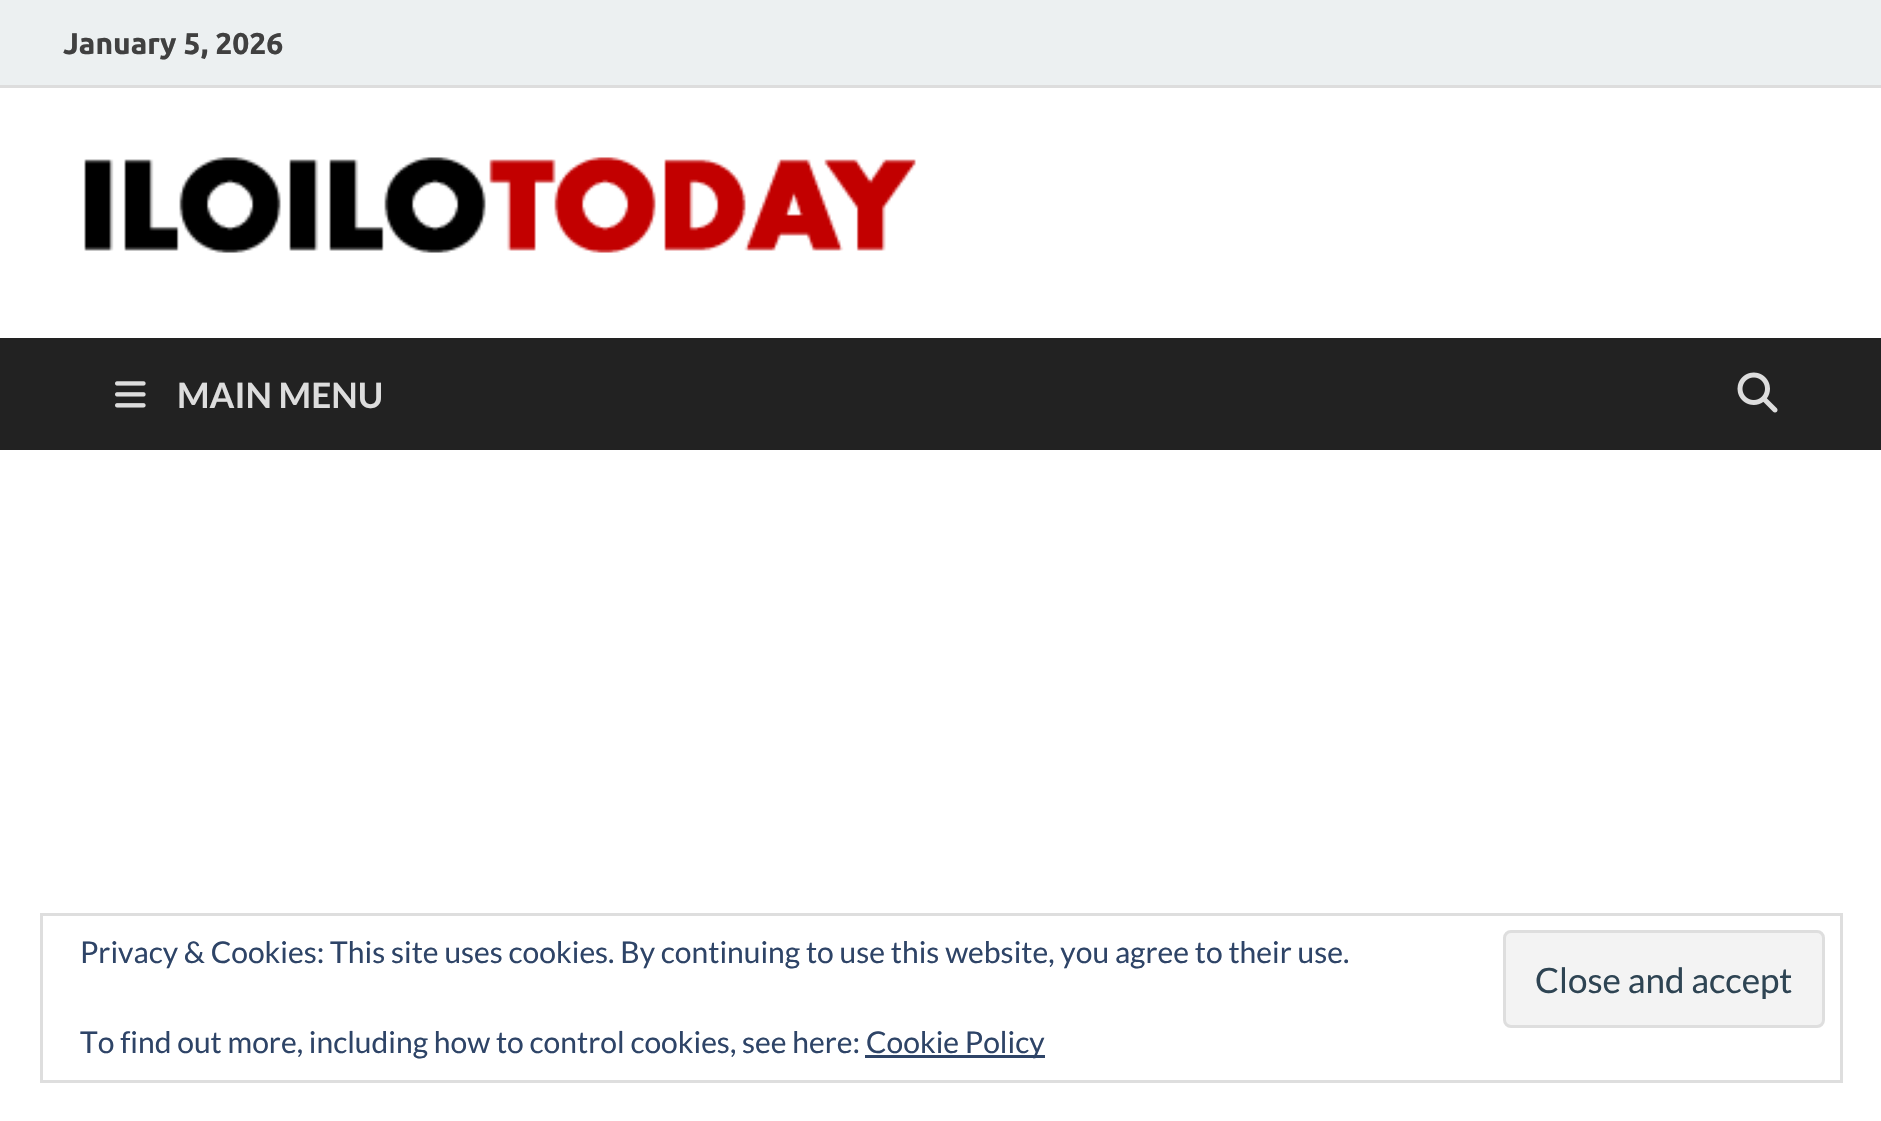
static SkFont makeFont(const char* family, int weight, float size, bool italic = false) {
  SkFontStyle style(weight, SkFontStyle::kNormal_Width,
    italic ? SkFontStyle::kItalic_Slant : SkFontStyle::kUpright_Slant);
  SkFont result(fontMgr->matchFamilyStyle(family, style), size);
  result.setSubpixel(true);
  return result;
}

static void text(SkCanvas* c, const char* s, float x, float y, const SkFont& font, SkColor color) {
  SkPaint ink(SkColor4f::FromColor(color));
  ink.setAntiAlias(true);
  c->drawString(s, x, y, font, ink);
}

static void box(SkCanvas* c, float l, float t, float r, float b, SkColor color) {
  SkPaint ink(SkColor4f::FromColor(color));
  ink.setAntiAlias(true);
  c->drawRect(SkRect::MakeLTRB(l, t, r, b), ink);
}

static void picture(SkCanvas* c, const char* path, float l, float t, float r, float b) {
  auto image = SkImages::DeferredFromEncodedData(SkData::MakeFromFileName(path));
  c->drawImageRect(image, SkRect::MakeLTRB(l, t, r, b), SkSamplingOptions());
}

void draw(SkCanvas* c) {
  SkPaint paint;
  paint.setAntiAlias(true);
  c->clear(0xffffffff);
  box(c, 0, 0, 1881, 85, 0xffecf0f1);
  box(c, 0, 85, 1881, 88, 0xffdddddd);
  SkFont face1 = makeFont("Ubuntu", 700, 30);
  text(c, "January 5, 2026", 63, 54, face1, 0xff404040);
  picture(c, "img_01.png", 84, 157, 916, 253);
  box(c, 0, 338, 1881, 450, 0xff222222);
  picture(c, "img_02.png", 115, 381, 146, 408);
  SkFont face2 = makeFont("Lato", 700, 35);
  text(c, "MAIN MENU", 177, 408, face2, 0xffdddddd);
  picture(c, "img_03.png", 1737, 372, 1778, 413);
  paint.setStyle(SkPaint::kStroke_Style);
  paint.setStrokeWidth(3);
  paint.setColor(0xffdedede);
  c->drawRect(SkRect::MakeLTRB(41.5f, 914.5f, 1841.5f, 1081.5f), paint);
  SkFont face3 = makeFont("Lato", 400, 30);
  text(c, "Privacy & Cookies: This site uses cookies. By continuing to use this website, you agree to their use.", 80, 963, face3, 0xff2e4467);
  paint.setStyle(SkPaint::kFill_Style);
  paint.setColor(0xfff3f3f3);
  c->drawRoundRect(SkRect::MakeLTRB(1504.5f, 931.5f, 1823.5f, 1026.5f), 6.5f, 6.5f, paint);
  paint.setStyle(SkPaint::kStroke_Style);
  paint.setColor(0xffdedede);
  c->drawRoundRect(SkRect::MakeLTRB(1504.5f, 931.5f, 1823.5f, 1026.5f), 6.5f, 6.5f, paint);
  SkFont face4 = makeFont("Lato", 400, 35);
  text(c, "Close and accept", 1535, 993, face4, 0xff2e4453);
  text(c, "To find out more, including how to control cookies, see here:", 80, 1053, face3, 0xff2e4467);
  box(c, 865, 1055, 1045, 1058, 0xff2e4467);
  text(c, "Cookie Policy", 866, 1053, face3, 0xff2e4467);
}
